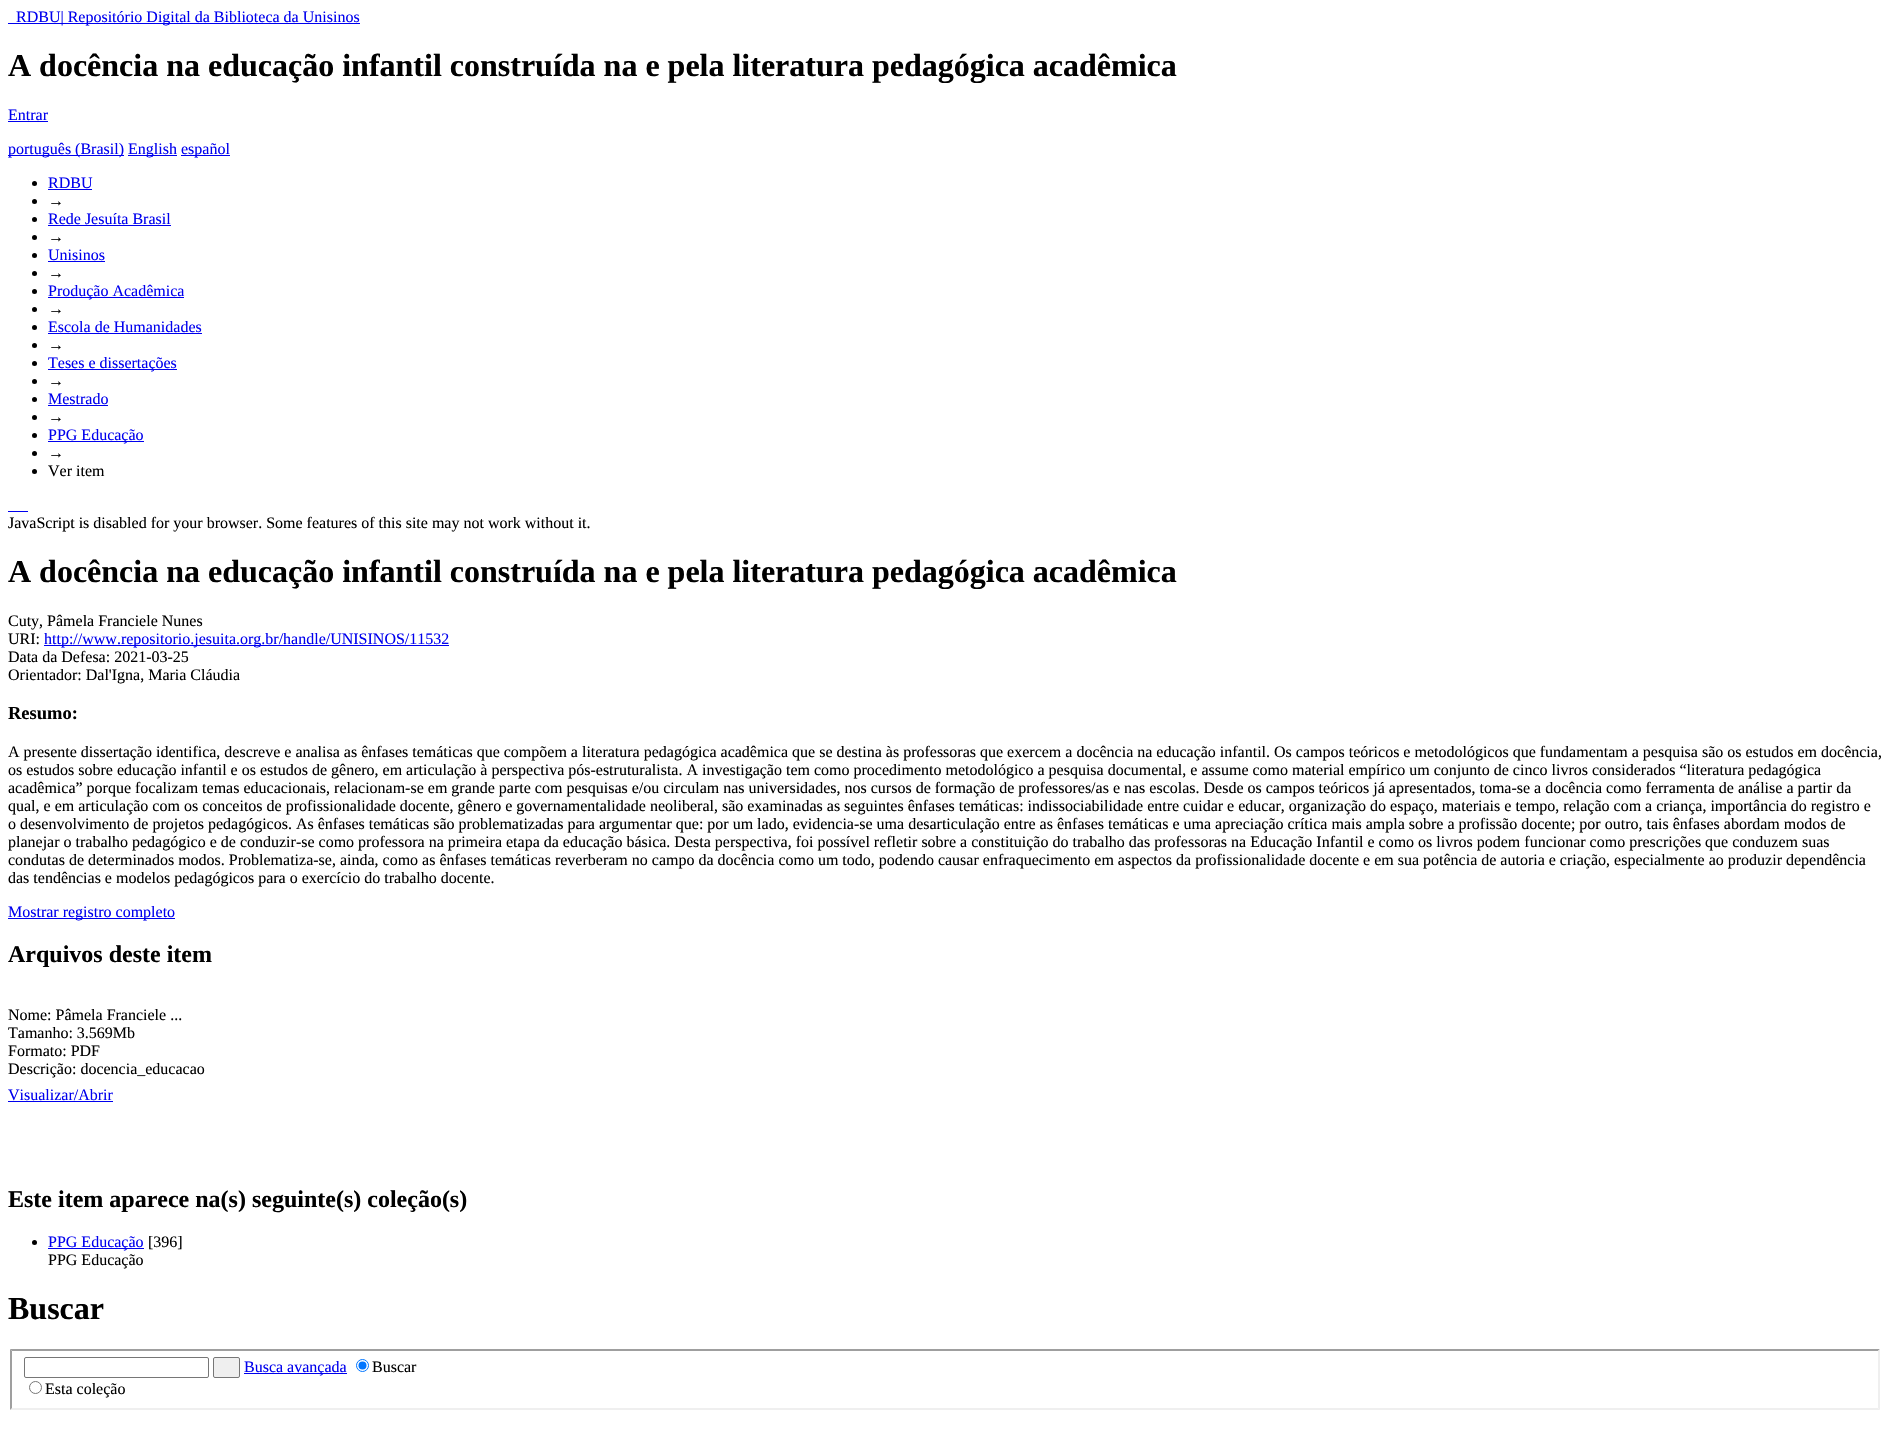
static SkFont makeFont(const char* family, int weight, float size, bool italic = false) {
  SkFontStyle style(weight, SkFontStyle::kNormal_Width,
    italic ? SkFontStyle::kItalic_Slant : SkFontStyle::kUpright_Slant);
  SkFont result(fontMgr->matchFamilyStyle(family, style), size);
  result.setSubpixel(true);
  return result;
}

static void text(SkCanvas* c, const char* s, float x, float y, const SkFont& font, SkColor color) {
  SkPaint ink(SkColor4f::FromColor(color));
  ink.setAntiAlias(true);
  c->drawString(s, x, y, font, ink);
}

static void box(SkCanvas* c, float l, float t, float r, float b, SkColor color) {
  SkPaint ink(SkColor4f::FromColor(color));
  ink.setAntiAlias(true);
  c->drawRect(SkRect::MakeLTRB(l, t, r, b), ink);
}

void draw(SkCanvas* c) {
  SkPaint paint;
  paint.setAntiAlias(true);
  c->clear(0xffffffff);
  box(c, 8, 23, 360, 24, 0xff0000ee);
  SkFont face1 = makeFont("Liberation Serif", 400, 16);
  text(c, "RDBU| Repositório Digital da Biblioteca da Unisinos", 16, 22, face1, 0xff0000ee);
  SkFont face2 = makeFont("Liberation Serif", 700, 32);
  text(c, "A docência na educação infantil construída na e pela literatura pedagógica acadêmica", 8, 76, face2, 0xff000000);
  text(c, "Entrar", 8, 120, face1, 0xff0000ee);
  box(c, 8, 121, 48, 122, 0xff0000ee);
  box(c, 8, 155, 124, 156, 0xff0000ee);
  text(c, "português (Brasil)", 8, 154, face1, 0xff0000ee);
  box(c, 128, 155, 177, 156, 0xff0000ee);
  text(c, "English", 128, 154, face1, 0xff0000ee);
  box(c, 181, 155, 230, 156, 0xff0000ee);
  text(c, "español", 181, 154, face1, 0xff0000ee);
  paint.setColor(0xff000000);
  c->drawCircle(34.5f, 183.5f, 2.5f, paint);
  text(c, "RDBU", 48, 188, face1, 0xff0000ee);
  box(c, 48, 189, 92, 190, 0xff0000ee);
  c->drawCircle(34.5f, 201.5f, 2.5f, paint);
  text(c, "→", 48, 206, face1, 0xff000000);
  c->drawCircle(34.5f, 219.5f, 2.5f, paint);
  text(c, "Rede Jesuíta Brasil", 48, 224, face1, 0xff0000ee);
  box(c, 48, 225, 171, 226, 0xff0000ee);
  c->drawCircle(34.5f, 237.5f, 2.5f, paint);
  text(c, "→", 48, 242, face1, 0xff000000);
  c->drawCircle(34.5f, 255.5f, 2.5f, paint);
  text(c, "Unisinos", 48, 260, face1, 0xff0000ee);
  box(c, 48, 261, 105, 262, 0xff0000ee);
  c->drawCircle(34.5f, 273.5f, 2.5f, paint);
  text(c, "→", 48, 278, face1, 0xff000000);
  c->drawCircle(34.5f, 291.5f, 2.5f, paint);
  box(c, 48, 297, 184, 298, 0xff0000ee);
  text(c, "Produção Acadêmica", 48, 296, face1, 0xff0000ee);
  c->drawCircle(34.5f, 309.5f, 2.5f, paint);
  text(c, "→", 48, 314, face1, 0xff000000);
  c->drawCircle(34.5f, 327.5f, 2.5f, paint);
  text(c, "Escola de Humanidades", 48, 332, face1, 0xff0000ee);
  box(c, 48, 333, 202, 334, 0xff0000ee);
  c->drawCircle(34.5f, 345.5f, 2.5f, paint);
  text(c, "→", 48, 350, face1, 0xff000000);
  c->drawCircle(34.5f, 363.5f, 2.5f, paint);
  box(c, 48, 369, 177, 370, 0xff0000ee);
  text(c, "Teses e dissertações", 48, 368, face1, 0xff0000ee);
  c->drawCircle(34.5f, 381.5f, 2.5f, paint);
  text(c, "→", 48, 386, face1, 0xff000000);
  c->drawCircle(34.5f, 399.5f, 2.5f, paint);
  text(c, "Mestrado", 48, 404, face1, 0xff0000ee);
  box(c, 48, 405, 108, 406, 0xff0000ee);
  c->drawCircle(34.5f, 417.5f, 2.5f, paint);
  text(c, "→", 48, 422, face1, 0xff000000);
  c->drawCircle(34.5f, 435.5f, 2.5f, paint);
  box(c, 48, 441, 144, 442, 0xff0000ee);
  text(c, "PPG Educação", 48, 440, face1, 0xff0000ee);
  c->drawCircle(34.5f, 453.5f, 2.5f, paint);
  text(c, "→", 48, 458, face1, 0xff000000);
  c->drawCircle(34.5f, 471.5f, 2.5f, paint);
  text(c, "Ver item", 48, 476, face1, 0xff000000);
  box(c, 8, 511, 28, 512, 0xff0000ee);
  text(c, "JavaScript is disabled for your browser. Some features of this site may not work without it.", 8, 528, face1, 0xff000000);
  text(c, "A docência na educação infantil construída na e pela literatura pedagógica acadêmica", 8, 582, face2, 0xff000000);
  text(c, "Cuty, Pâmela Franciele Nunes", 8, 626, face1, 0xff000000);
  text(c, "URI:", 8, 644, face1, 0xff000000);
  box(c, 44, 645, 449, 646, 0xff0000ee);
  text(c, "http://www.repositorio.jesuita.org.br/handle/UNISINOS/11532", 44, 644, face1, 0xff0000ee);
  text(c, "Data da Defesa: 2021-03-25", 8, 662, face1, 0xff000000);
  text(c, "Orientador: Dal'Igna, Maria Cláudia", 8, 680, face1, 0xff000000);
  SkFont face3 = makeFont("Liberation Serif", 700, 18.5f);
  text(c, "Resumo:", 8, 719, face3, 0xff000000);
  text(c, "A presente dissertação identifica, descreve e analisa as ênfases temáticas que compõem a literatura pedagógica acadêmica que se destina às professoras que exercem a docência na educação infantil. Os campos teóricos e metodológicos que fundamentam a pesquisa são os estudos em docência,", 8, 757, face1, 0xff000000);
  text(c, "os estudos sobre educação infantil e os estudos de gênero, em articulação à perspectiva pós-estruturalista. A investigação tem como procedimento metodológico a pesquisa documental, e assume como material empírico um conjunto de cinco livros considerados “literatura pedagógica", 8, 775, face1, 0xff000000);
  text(c, "acadêmica” porque focalizam temas educacionais, relacionam-se em grande parte com pesquisas e/ou circulam nas universidades, nos cursos de formação de professores/as e nas escolas. Desde os campos teóricos já apresentados, toma-se a docência como ferramenta de análise a partir da", 8, 793, face1, 0xff000000);
  text(c, "qual, e em articulação com os conceitos de profissionalidade docente, gênero e governamentalidade neoliberal, são examinadas as seguintes ênfases temáticas: indissociabilidade entre cuidar e educar, organização do espaço, materiais e tempo, relação com a criança, importância do registro e", 8, 811, face1, 0xff000000);
  text(c, "o desenvolvimento de projetos pedagógicos. As ênfases temáticas são problematizadas para argumentar que: por um lado, evidencia-se uma desarticulação entre as ênfases temáticas e uma apreciação crítica mais ampla sobre a profissão docente; por outro, tais ênfases abordam modos de", 8, 829, face1, 0xff000000);
  text(c, "planejar o trabalho pedagógico e de conduzir-se como professora na primeira etapa da educação básica. Desta perspectiva, foi possível refletir sobre a constituição do trabalho das professoras na Educação Infantil e como os livros podem funcionar como prescrições que conduzem suas", 8, 847, face1, 0xff000000);
  text(c, "condutas de determinados modos. Problematiza-se, ainda, como as ênfases temáticas reverberam no campo da docência como um todo, podendo causar enfraquecimento em aspectos da profissionalidade docente e em sua potência de autoria e criação, especialmente ao produzir dependência", 8, 865, face1, 0xff000000);
  text(c, "das tendências e modelos pedagógicos para o exercício do trabalho docente.", 8, 883, face1, 0xff000000);
  box(c, 8, 918, 175, 919, 0xff0000ee);
  text(c, "Mostrar registro completo", 8, 917, face1, 0xff0000ee);
  SkFont face4 = makeFont("Liberation Serif", 700, 24);
  text(c, "Arquivos deste item", 8, 962, face4, 0xff000000);
  text(c, "Nome: Pâmela Franciele ...", 8, 1020, face1, 0xff000000);
  text(c, "Tamanho: 3.569Mb", 8, 1038, face1, 0xff000000);
  text(c, "Formato: PDF", 8, 1056, face1, 0xff000000);
  text(c, "Descrição: docencia_educacao", 8, 1074, face1, 0xff000000);
  text(c, "Visualizar/Abrir", 8, 1100, face1, 0xff0000ee);
  box(c, 8, 1101, 113, 1102, 0xff0000ee);
  text(c, "Este item aparece na(s) seguinte(s) coleção(s)", 8, 1207, face4, 0xff000000);
  c->drawCircle(34.5f, 1242.5f, 2.5f, paint);
  box(c, 48, 1248, 144, 1249, 0xff0000ee);
  text(c, "PPG Educação", 48, 1247, face1, 0xff0000ee);
  text(c, "[396]", 148, 1247, face1, 0xff000000);
  text(c, "PPG Educação", 48, 1265, face1, 0xff000000);
  text(c, "Buscar", 8, 1319, face2, 0xff000000);
  paint.setColor(0xff9f9f9f);
  c->drawPath(SkPathBuilder().moveTo(10, 1349).lineTo(1880, 1349).lineTo(1878, 1351).lineTo(12, 1351).close().detach(), paint);
  paint.setColor(0xffefefef);
  c->drawPath(SkPathBuilder().moveTo(1880, 1349).lineTo(1880, 1410).lineTo(1878, 1408).lineTo(1878, 1351).close().detach(), paint);
  c->drawPath(SkPathBuilder().moveTo(1880, 1410).lineTo(10, 1410).lineTo(12, 1408).lineTo(1878, 1408).close().detach(), paint);
  paint.setColor(0xff9f9f9f);
  c->drawPath(SkPathBuilder().moveTo(10, 1410).lineTo(10, 1349).lineTo(12, 1351).lineTo(12, 1408).close().detach(), paint);
  paint.setStyle(SkPaint::kStroke_Style);
  paint.setStrokeWidth(1);
  paint.setColor(0xff767676);
  c->drawRoundRect(SkRect::MakeLTRB(24.5f, 1357.5f, 208.5f, 1377.5f), 1.5f, 1.5f, paint);
  paint.setStyle(SkPaint::kFill_Style);
  paint.setColor(0xffefefef);
  c->drawRoundRect(SkRect::MakeLTRB(213.5f, 1357.5f, 239.5f, 1377.5f), 1.5f, 1.5f, paint);
  paint.setStyle(SkPaint::kStroke_Style);
  paint.setColor(0xff767676);
  c->drawRoundRect(SkRect::MakeLTRB(213.5f, 1357.5f, 239.5f, 1377.5f), 1.5f, 1.5f, paint);
  box(c, 244, 1373, 347, 1374, 0xff0000ee);
  text(c, "Busca avançada", 244, 1372, face1, 0xff0000ee);
  paint.setColor(0xff0075ff);
  c->drawCircle(362.5f, 1365.5f, 6, paint);
  paint.setStyle(SkPaint::kFill_Style);
  c->drawCircle(362.5f, 1365.5f, 4, paint);
  text(c, "Buscar", 372, 1372, face1, 0xff000000);
  paint.setStyle(SkPaint::kStroke_Style);
  paint.setColor(0xff767676);
  c->drawCircle(35.5f, 1387.5f, 6, paint);
  text(c, "Esta coleção", 45, 1394, face1, 0xff000000);
}
